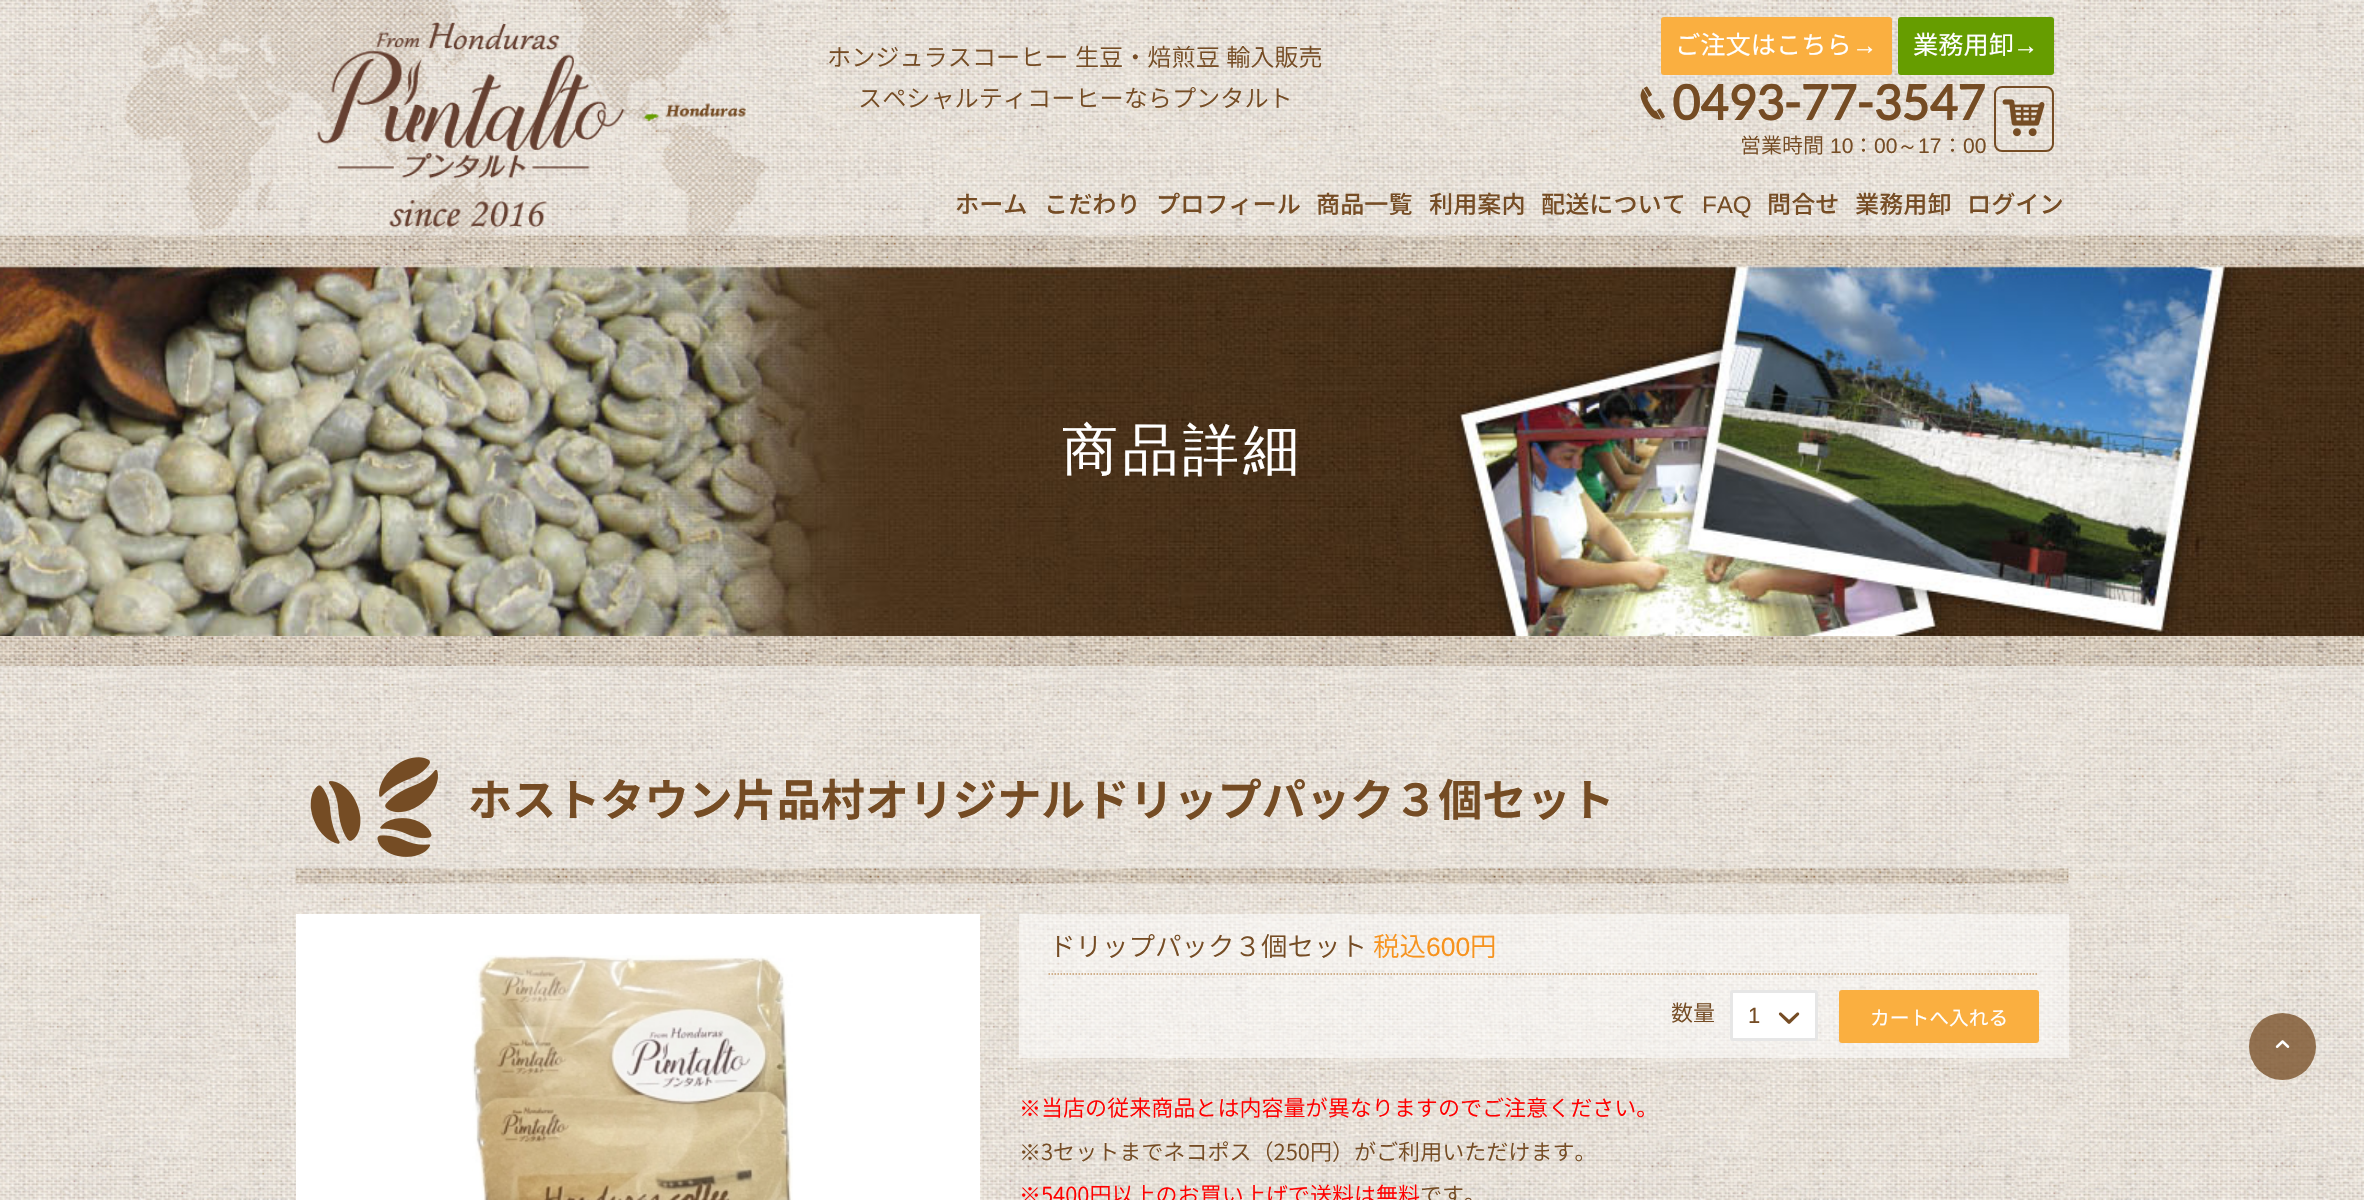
static SkFont makeFont(const char* family, int weight, float size, bool italic = false) {
  SkFontStyle style(weight, SkFontStyle::kNormal_Width,
    italic ? SkFontStyle::kItalic_Slant : SkFontStyle::kUpright_Slant);
  SkFont result(fontMgr->matchFamilyStyle(family, style), size);
  result.setSubpixel(true);
  return result;
}

static void text(SkCanvas* c, const char* s, float x, float y, const SkFont& font, SkColor color) {
  SkPaint ink(SkColor4f::FromColor(color));
  ink.setAntiAlias(true);
  c->drawString(s, x, y, font, ink);
}

static void spacedText(SkCanvas* c, const char* s, float x, float y, const SkFont& font, const SkPaint& ink, float letter, float word) {
  std::vector<SkGlyphID> glyphs(font.countText(s, strlen(s), SkTextEncoding::kUTF8));
  std::vector<float> xs(glyphs.size());
  font.textToGlyphs(s, strlen(s), SkTextEncoding::kUTF8, glyphs);
  font.getXPos(glyphs, xs, x);
  float extra = 0;
  for (size_t i = 0; i < glyphs.size(); i++) {
    xs[i] += extra;
    extra += letter + word * (glyphs[i] == font.unicharToGlyph(' '));
  }
  c->drawTextBlob(SkTextBlob::MakeFromPosHGlyphs(glyphs, xs, y, font), 0, 0, ink);
}

static void box(SkCanvas* c, float l, float t, float r, float b, SkColor color) {
  SkPaint ink(SkColor4f::FromColor(color));
  ink.setAntiAlias(true);
  c->drawRect(SkRect::MakeLTRB(l, t, r, b), ink);
}

static void roundBox(SkCanvas* c, float l, float t, float r, float b, float radius, SkColor color) {
  SkPaint ink(SkColor4f::FromColor(color));
  ink.setAntiAlias(true);
  c->drawRoundRect(SkRect::MakeLTRB(l, t, r, b), radius, radius, ink);
}

static void picture(SkCanvas* c, const char* path, float l, float t, float r, float b) {
  auto image = SkImages::DeferredFromEncodedData(SkData::MakeFromFileName(path));
  c->drawImageRect(image, SkRect::MakeLTRB(l, t, r, b), SkSamplingOptions());
}

void draw(SkCanvas* c) {
  SkPaint paint;
  paint.setAntiAlias(true);
  c->clear(0xffffffff);
  picture(c, "img_01.png", 0, 0, 2364, 1200);
  picture(c, "img_02.png", 123, 0, 766, 266);
  picture(c, "img_03.png", 317, 22, 625, 179);
  picture(c, "img_04.png", 389, 200, 547, 227);
  SkFont face1 = makeFont("Noto Sans JP", 300, 24.15f);
  paint.setColor(0xff754c24);
  spacedText(c, "ホンジュラスコーヒー 生豆・焙煎豆 輸入販売", 827, 66, face1, paint, 0, 1);
  text(c, "スペシャルティコーヒーならプンタルト", 858, 107, face1, 0xff754c24);
  roundBox(c, 1661, 17, 1892, 75, 3, 0xfffaaf40);
  SkFont face2 = makeFont("Noto Sans JP", 400, 25.25f);
  text(c, "ご注文はこちら", 1675, 54, face2, 0xffffffff);
  SkFont face3 = makeFont("Liberation Sans", 400, 25.25f);
  text(c, "→", 1852, 54, face3, 0xffffffff);
  roundBox(c, 1898, 17, 2054, 75, 3, 0xff669d00);
  text(c, "業務用卸", 1913, 54, face2, 0xffffffff);
  text(c, "→", 2013, 54, face3, 0xffffffff);
  picture(c, "img_05.png", 1640, 86, 1665, 120);
  SkFont face4 = makeFont("Lato", 700, 48.25f);
  text(c, "0493-77-3547", 1672, 120, face4, 0xff754c24);
  SkFont face5 = makeFont("Noto Sans JP", 300, 21);
  text(c, "営業時間", 1740, 153, face5, 0xff754c24);
  SkFont face6 = makeFont("Liberation Sans", 400, 21);
  text(c, "10", 1830, 153, face6, 0xff754c24);
  text(c, "：", 1853, 153, face5, 0xff754c24);
  text(c, "00", 1874, 153, face6, 0xff754c24);
  SkFont face7 = makeFont("WenQuanYi Zen Hei", 500, 21);
  text(c, "～", 1897, 153, face7, 0xff754c24);
  text(c, "17", 1918, 153, face6, 0xff754c24);
  text(c, "：", 1942, 153, face5, 0xff754c24);
  text(c, "00", 1963, 153, face6, 0xff754c24);
  paint.setStyle(SkPaint::kStroke_Style);
  paint.setStrokeWidth(2);
  c->drawRoundRect(SkRect::MakeLTRB(1995, 87, 2053, 151), 7, 7, paint);
  picture(c, "img_06.png", 2002, 99, 2045, 137);
  SkFont face8 = makeFont("Noto Sans JP", 500, 24.15f);
  text(c, "ホーム", 955, 213, face8, 0xff754c24);
  text(c, "こだわり", 1044, 213, face8, 0xff754c24);
  text(c, "プロフィール", 1156, 213, face8, 0xff754c24);
  text(c, "商品一覧", 1316, 213, face8, 0xff754c24);
  text(c, "利用案内", 1429, 213, face8, 0xff754c24);
  text(c, "配送について", 1541, 213, face8, 0xff754c24);
  SkFont face9 = makeFont("Liberation Sans", 400, 24.15f);
  text(c, "FAQ", 1702, 213, face9, 0xff754c24);
  text(c, "問合せ", 1767, 213, face8, 0xff754c24);
  text(c, "業務用卸", 1855, 213, face8, 0xff754c24);
  text(c, "ログイン", 1967, 213, face8, 0xff754c24);
  picture(c, "img_07.png", 0, 235, 2364, 666);
  picture(c, "img_08.png", 0, 265, 2364, 636);
  SkFont face10 = makeFont("WenQuanYi Zen Hei", 500, 56);
  paint.setStyle(SkPaint::kFill_Style);
  paint.setColor(0xffffffff);
  spacedText(c, "商品詳細", 1062, 469, face10, paint, 4.5f, 0);
  picture(c, "img_09.png", 310, 757, 438, 857);
  SkFont face11 = makeFont("Noto Sans JP", 700, 44.1f);
  text(c, "ホストタウン片品村オリジナルドリップパック３個セット", 468, 816, face11, 0xff754c24);
  picture(c, "img_10.png", 295, 868, 2069, 884);
  box(c, 296, 914, 980, 1200, 0xffffffff);
  picture(c, "img_11.png", 472, 955, 793, 1200);
  box(c, 1019, 914, 2069, 1058, 0x85ffffff);
  paint.setStyle(SkPaint::kStroke_Style);
  paint.setStrokeWidth(1.5f);
  paint.setColor(0xffc69c6d);
  paint.setPathEffect(SkDashPathEffect::Make({{1.5f, 1.5f}}, 0));
  c->drawPath(SkPathBuilder().moveTo(1048.5f, 974).lineTo(2038.5f, 974).detach(), paint);
  paint.setPathEffect(nullptr);
  SkFont face12 = makeFont("Noto Sans JP", 300, 26.5f);
  text(c, "ドリップパック３個セット", 1049, 956, face12, 0xff754c24);
  text(c, "税込", 1373, 956, face12, 0xfff7931e);
  SkFont face13 = makeFont("Liberation Sans", 400, 26.5f);
  text(c, "600", 1426, 956, face13, 0xfff7931e);
  text(c, "円", 1470, 956, face12, 0xfff7931e);
  SkFont face14 = makeFont("Noto Sans JP", 300, 22.05f);
  text(c, "数量", 1671, 1021, face14, 0xff754c24);
  paint.setStyle(SkPaint::kFill_Style);
  paint.setColor(0xffffffff);
  c->drawRoundRect(SkRect::MakeLTRB(1731.5f, 991.5f, 1816.5f, 1039.5f), 1.5f, 1.5f, paint);
  paint.setStyle(SkPaint::kStroke_Style);
  paint.setStrokeWidth(3);
  paint.setColor(0xffe6e6e6);
  c->drawRoundRect(SkRect::MakeLTRB(1731.5f, 991.5f, 1816.5f, 1039.5f), 1.5f, 1.5f, paint);
  SkFont face15 = makeFont("Liberation Sans", 400, 22.05f);
  text(c, "1", 1748, 1023, face15, 0xff754c24);
  picture(c, "img_12.png", 1778, 1012, 1800, 1024);
  roundBox(c, 1839, 990, 2039, 1043, 3, 0xfffaaf40);
  SkFont face16 = makeFont("Noto Sans JP", 400, 19.75f);
  text(c, "カートへ入れる", 1870, 1025, face16, 0xffffffff);
  SkFont face17 = makeFont("WenQuanYi Zen Hei", 500, 22.05f);
  text(c, "※", 1019, 1116, face17, 0xffff0000);
  text(c, "当店の従来商品とは内容量が異なりますのでご注意ください。", 1041, 1116, face14, 0xffff0000);
  text(c, "※", 1019, 1160, face17, 0xff754c24);
  text(c, "3セットまでネコポス（250円）がご利用いただけます。", 1041, 1160, face14, 0xff754c24);
  text(c, "※", 1019, 1203, face17, 0xffff0000);
  text(c, "5400円以上のお買い上げで送料は無料", 1041, 1203, face14, 0xffff0000);
  text(c, "です。", 1420, 1203, face14, 0xff754c24);
  paint.setStyle(SkPaint::kFill_Style);
  paint.setColor(0xc4764d25);
  c->drawCircle(2282.5f, 1046.5f, 33.5f, paint);
  picture(c, "img_13.png", 2275, 1040, 2290, 1048);
}
